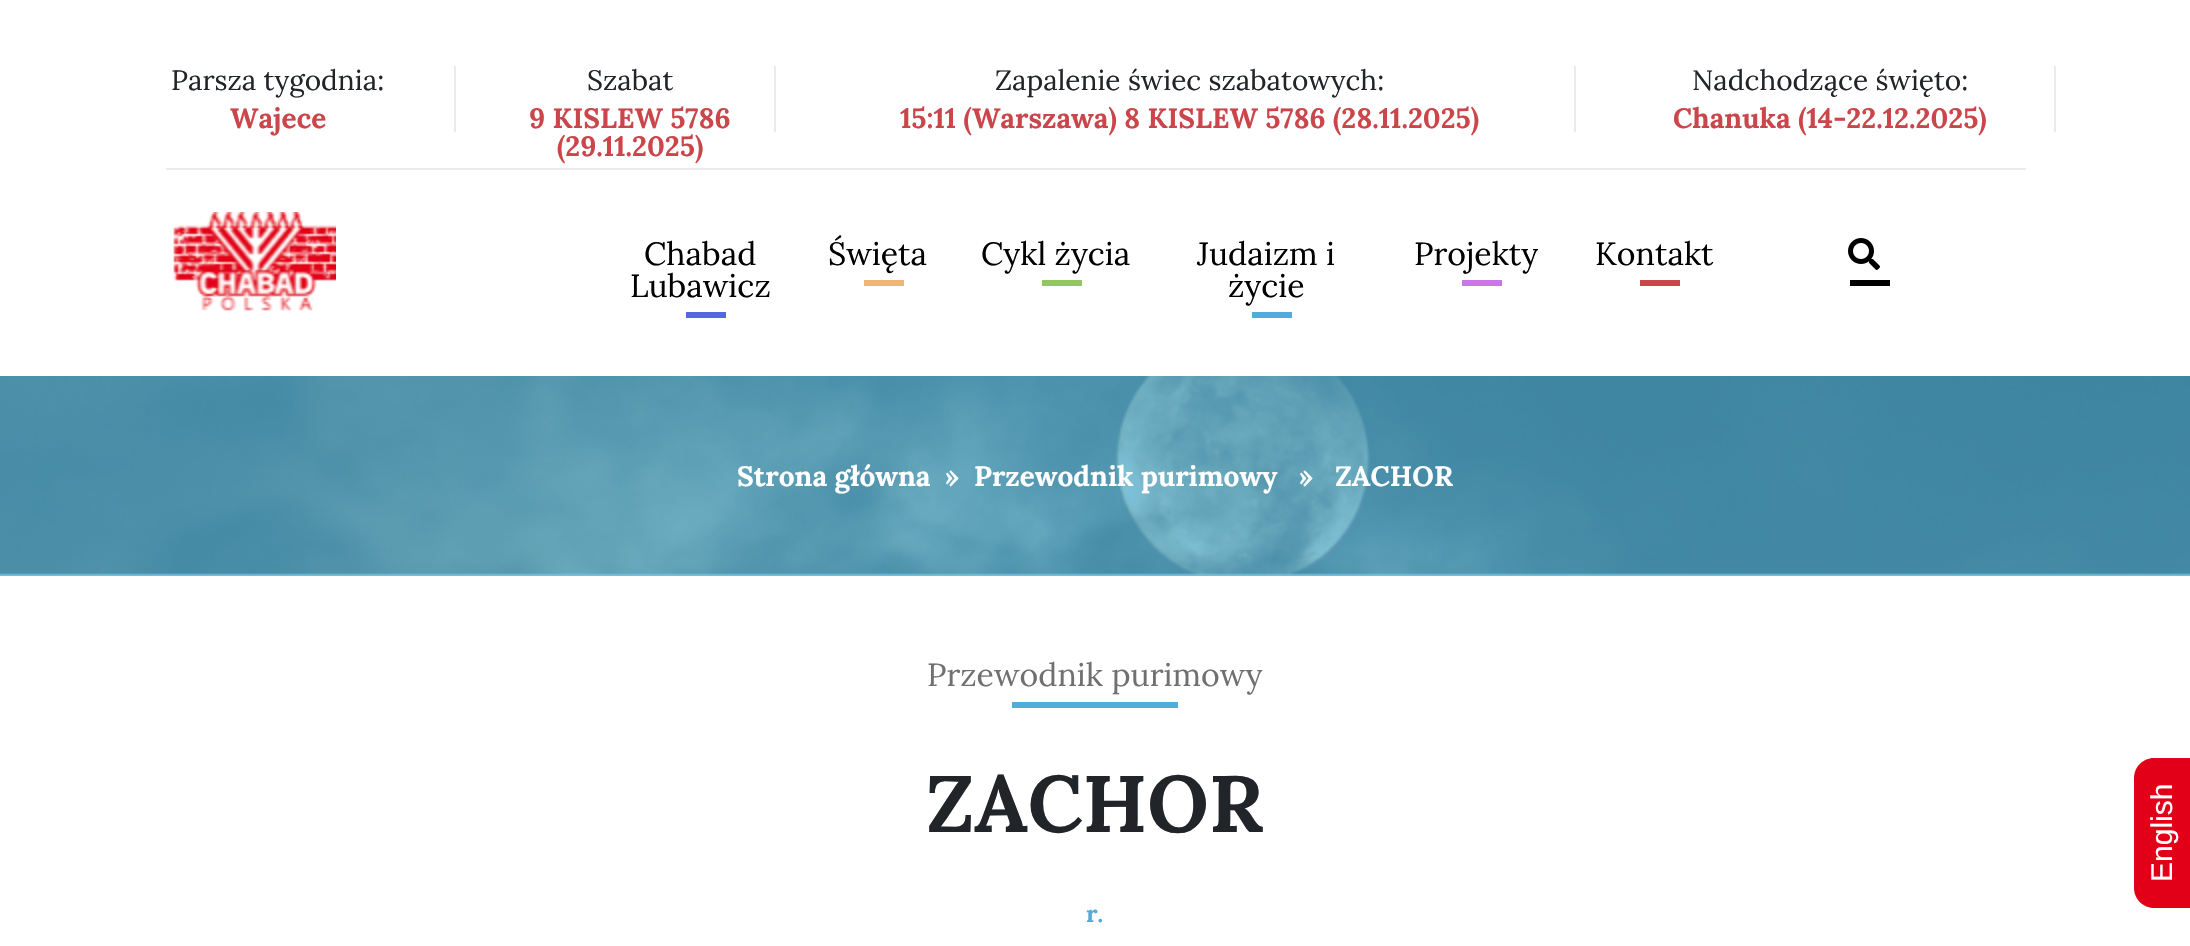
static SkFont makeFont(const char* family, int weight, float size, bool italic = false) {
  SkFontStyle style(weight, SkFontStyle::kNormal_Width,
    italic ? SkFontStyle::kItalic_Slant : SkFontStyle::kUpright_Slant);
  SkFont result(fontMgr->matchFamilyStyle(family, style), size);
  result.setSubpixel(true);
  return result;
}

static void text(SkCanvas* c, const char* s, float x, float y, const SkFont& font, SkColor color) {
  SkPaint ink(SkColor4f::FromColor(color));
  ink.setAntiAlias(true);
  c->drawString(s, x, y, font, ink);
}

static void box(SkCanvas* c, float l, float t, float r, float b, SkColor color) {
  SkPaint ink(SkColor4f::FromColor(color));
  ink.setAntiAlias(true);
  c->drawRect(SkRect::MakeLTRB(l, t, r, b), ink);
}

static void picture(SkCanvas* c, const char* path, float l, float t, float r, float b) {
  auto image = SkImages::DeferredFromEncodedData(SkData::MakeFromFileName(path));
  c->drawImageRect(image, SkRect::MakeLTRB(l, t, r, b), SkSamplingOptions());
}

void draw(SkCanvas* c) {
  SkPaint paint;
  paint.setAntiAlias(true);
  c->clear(0xffffffff);
  box(c, 0, 573, 2190, 576, 0xff7bc3e1);
  box(c, 166, 168, 2026, 170, 0xffebebeb);
  box(c, 454, 66, 456, 132, 0xffebebeb);
  SkFont face1 = makeFont("Lora", 400, 28);
  text(c, "Parsza tygodnia:", 171, 90, face1, 0xff212529);
  SkFont face2 = makeFont("Lora", 700, 28);
  text(c, "Wajece", 230, 128, face2, 0xffcb464a);
  box(c, 774, 66, 776, 132, 0xffebebeb);
  text(c, "Szabat", 587, 90, face1, 0xff212529);
  text(c, "9 KISLEW 5786", 529, 128, face2, 0xffcb464a);
  text(c, "(29.11.2025)", 557, 156, face2, 0xffcb464a);
  box(c, 1574, 66, 1576, 132, 0xffebebeb);
  text(c, "Zapalenie świec szabatowych:", 995, 90, face1, 0xff212529);
  text(c, "15:11 (Warszawa) 8 KISLEW 5786 (28.11.2025)", 900, 128, face2, 0xffcb464a);
  box(c, 2054, 66, 2056, 132, 0xffebebeb);
  text(c, "Nadchodzące święto:", 1692, 90, face1, 0xff212529);
  text(c, "Chanuka (14-22.12.2025)", 1673, 128, face2, 0xffcb464a);
  picture(c, "img_01.png", 173, 212, 336, 311);
  SkFont face3 = makeFont("Lora", 400, 32);
  text(c, "Chabad", 644, 265, face3, 0xff000000);
  text(c, "Lubawicz", 630, 297, face3, 0xff000000);
  box(c, 686, 312, 726, 318, 0xff5467de);
  text(c, "Święta", 828, 265, face3, 0xff000000);
  box(c, 864, 280, 904, 286, 0xffe9b872);
  text(c, "Cykl życia", 981, 265, face3, 0xff000000);
  box(c, 1042, 280, 1082, 286, 0xff92c75d);
  text(c, "Judaizm i", 1197, 265, face3, 0xff000000);
  text(c, "życie", 1228, 297, face3, 0xff000000);
  box(c, 1252, 312, 1292, 318, 0xff4fadd8);
  text(c, "Projekty", 1414, 265, face3, 0xff000000);
  box(c, 1462, 280, 1502, 286, 0xffc778e8);
  text(c, "Kontakt", 1595, 265, face3, 0xff000000);
  box(c, 1640, 280, 1680, 286, 0xffcb464a);
  picture(c, "img_02.png", 1848, 238, 1880, 270);
  box(c, 1850, 280, 1890, 286, 0xff000000);
  picture(c, "img_03.png", 0, 376, 2190, 576);
  text(c, "Strona główna", 737, 486, face2, 0xffffffff);
  text(c, "»", 945, 486, face2, 0xffffffff);
  text(c, "Przewodnik purimowy", 974, 486, face2, 0xffffffff);
  text(c, "»   ZACHOR", 1299, 486, face2, 0xffffffff);
  text(c, "Przewodnik purimowy", 927, 686, face3, 0xff707070);
  box(c, 1012, 702, 1178, 708, 0xff4fadd8);
  SkFont face4 = makeFont("Lora", 700, 80);
  text(c, "ZACHOR", 926, 832, face4, 0xff212529);
  SkFont face5 = makeFont("Lora", 700, 24);
  text(c, "r.", 1086, 922, face5, 0xff4fadd8);
  paint.setColor(0xffe20019);
  c->drawPath(SkPathBuilder().moveTo(2134, 888).lineTo(2134, 778).cubicTo(2134, 767, 2143, 758, 2154, 758).lineTo(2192, 758).lineTo(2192, 908).lineTo(2154, 908).cubicTo(2143, 908, 2134, 899, 2134, 888).close().detach(), paint);
  SkFont face6 = makeFont("Liberation Sans", 400, 30);
  c->save();
  c->rotate(-90, 2172, 882);
  text(c, "English", 2172, 882, face6, 0xffffffff);
  c->restore();
}
